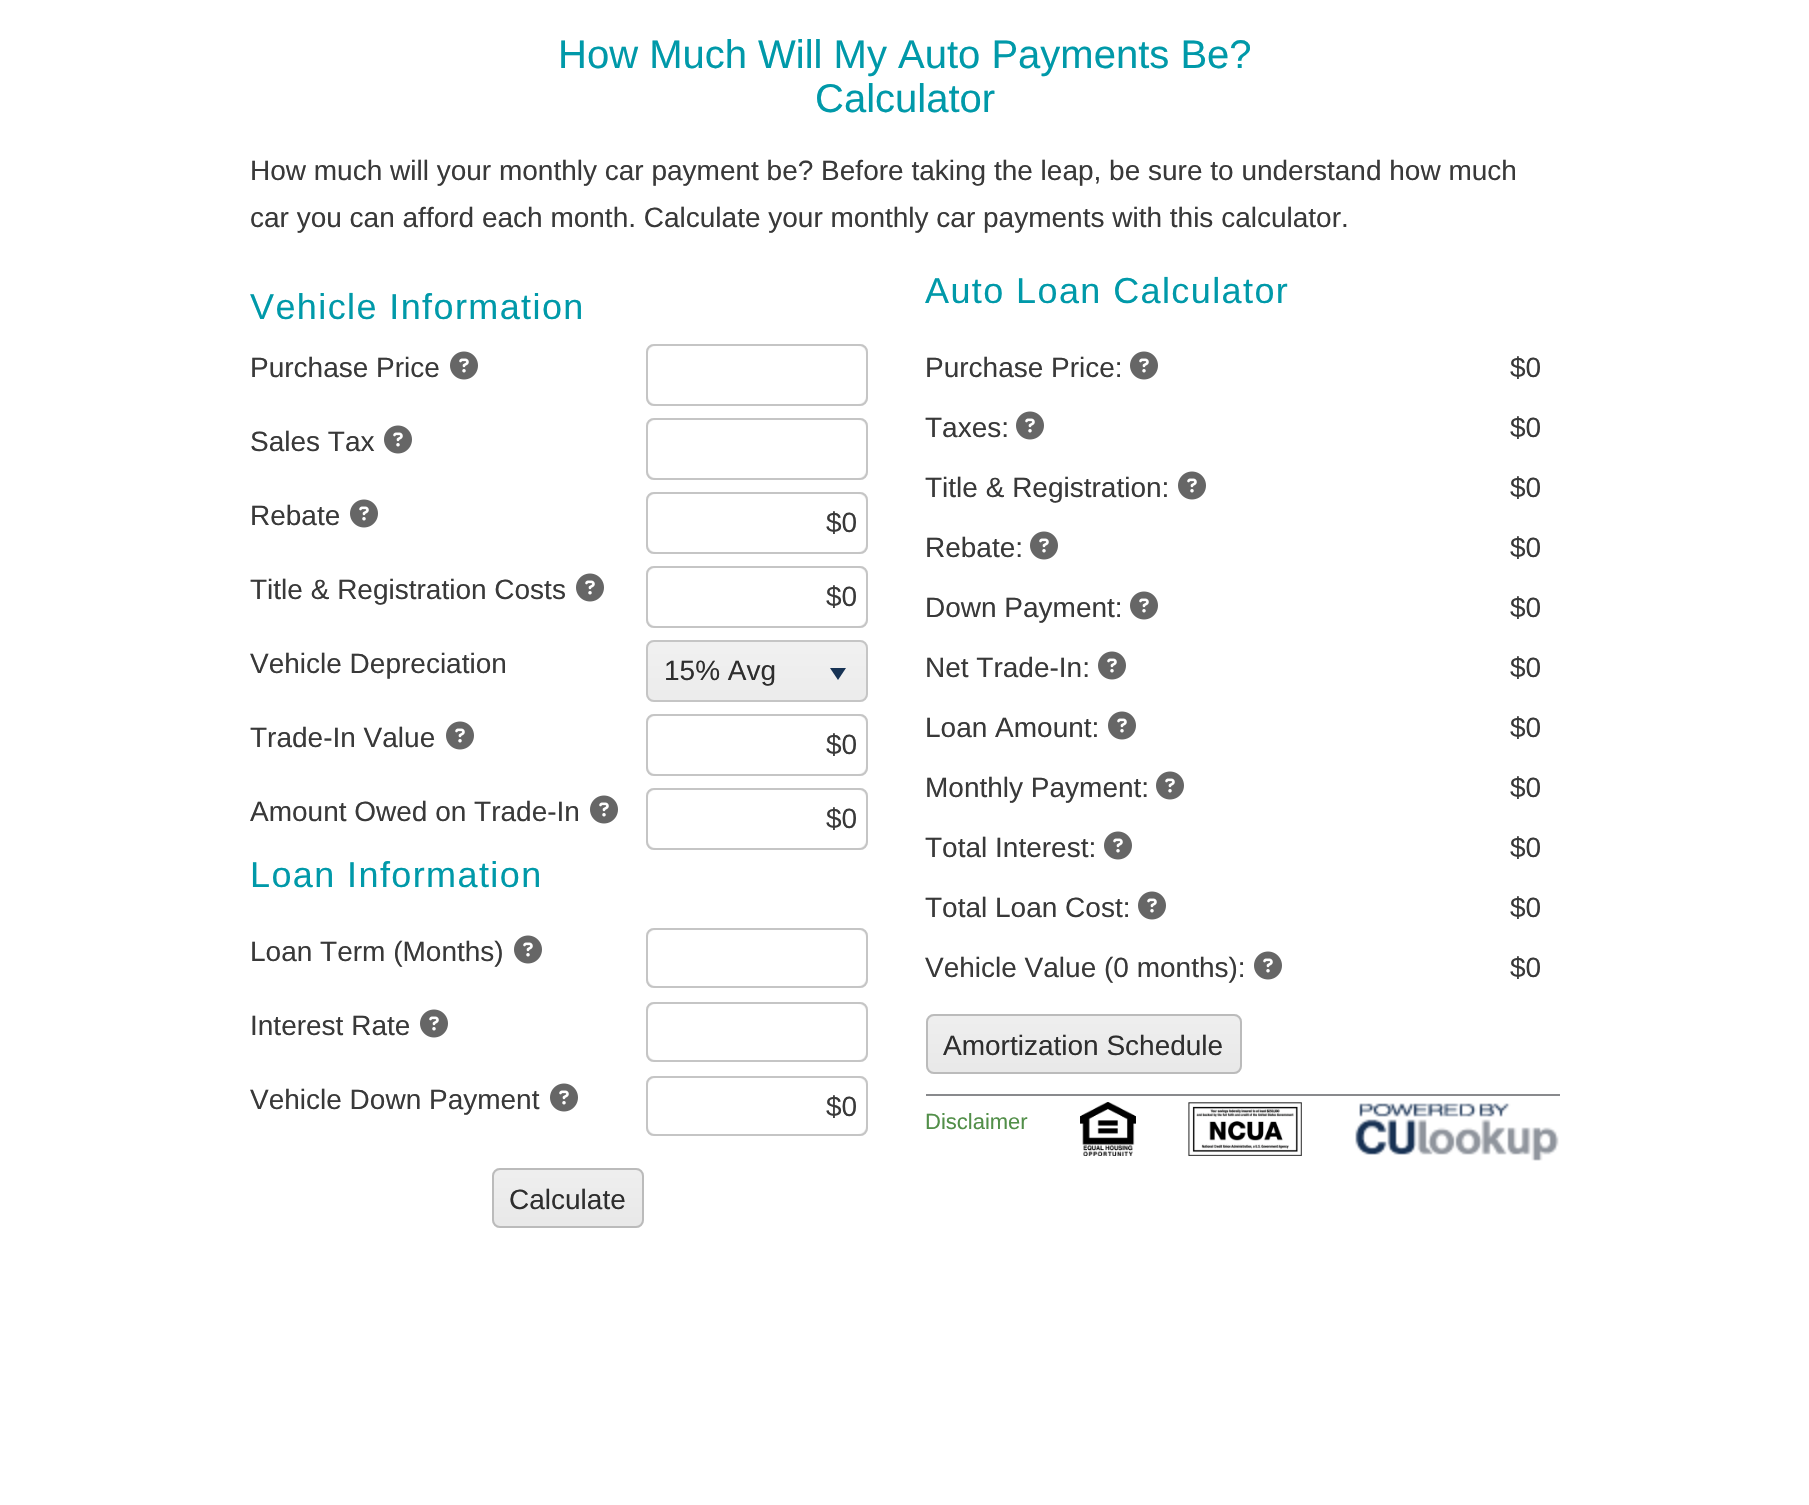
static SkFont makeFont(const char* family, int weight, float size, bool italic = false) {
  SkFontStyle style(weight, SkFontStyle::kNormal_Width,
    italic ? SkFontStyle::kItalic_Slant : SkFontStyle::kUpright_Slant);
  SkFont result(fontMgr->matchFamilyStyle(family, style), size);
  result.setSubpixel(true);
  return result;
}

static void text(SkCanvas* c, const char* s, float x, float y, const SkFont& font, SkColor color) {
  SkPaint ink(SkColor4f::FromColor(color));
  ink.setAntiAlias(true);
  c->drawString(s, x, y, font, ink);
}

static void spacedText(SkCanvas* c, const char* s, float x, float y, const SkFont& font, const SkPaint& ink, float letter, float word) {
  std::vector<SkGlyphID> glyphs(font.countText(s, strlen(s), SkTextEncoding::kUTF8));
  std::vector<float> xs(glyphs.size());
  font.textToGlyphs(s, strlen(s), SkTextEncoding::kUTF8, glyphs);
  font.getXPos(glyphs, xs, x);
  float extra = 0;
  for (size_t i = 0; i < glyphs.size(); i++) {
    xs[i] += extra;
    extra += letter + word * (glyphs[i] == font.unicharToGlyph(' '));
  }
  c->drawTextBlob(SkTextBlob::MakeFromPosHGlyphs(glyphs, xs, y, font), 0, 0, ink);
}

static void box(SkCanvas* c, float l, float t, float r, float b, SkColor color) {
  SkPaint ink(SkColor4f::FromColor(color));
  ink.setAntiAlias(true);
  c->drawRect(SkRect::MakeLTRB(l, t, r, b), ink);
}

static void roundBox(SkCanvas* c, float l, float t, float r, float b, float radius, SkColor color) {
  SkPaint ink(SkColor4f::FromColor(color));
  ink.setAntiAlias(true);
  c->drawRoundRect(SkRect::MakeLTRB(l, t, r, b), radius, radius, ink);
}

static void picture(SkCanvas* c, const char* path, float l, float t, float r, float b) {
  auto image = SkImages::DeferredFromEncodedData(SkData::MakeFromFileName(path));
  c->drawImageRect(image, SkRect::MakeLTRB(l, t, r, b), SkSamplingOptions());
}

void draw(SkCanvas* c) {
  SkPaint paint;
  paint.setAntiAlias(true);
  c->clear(0xffffffff);
  SkFont face1 = makeFont("Liberation Sans", 400, 40);
  text(c, "How Much Will My Auto Payments Be?", 558, 68, face1, 0xff0099a9);
  text(c, "Calculator", 815, 112, face1, 0xff0099a9);
  SkFont face2 = makeFont("Liberation Sans", 400, 28);
  text(c, "How much will your monthly car payment be? Before taking the leap, be sure to understand how much", 250, 180, face2, 0xff393939);
  text(c, "car you can afford each month. Calculate your monthly car payments with this calculator.", 250, 227, face2, 0xff393939);
  SkFont face3 = makeFont("Liberation Sans", 400, 36);
  paint.setColor(0xff0099a9);
  spacedText(c, "Vehicle Information", 250, 319, face3, paint, 1.4f, 0);
  text(c, "Purchase Price", 250, 377, face2, 0xff393939);
  picture(c, "img_01.png", 450, 351, 478, 380);
  roundBox(c, 646, 344, 868, 406, 8, 0xffececec);
  c->save();
  c->clipPath(SkPathBuilder().moveTo(654, 344).lineTo(860, 344).cubicTo(864.5f, 344, 868, 347.5f, 868, 352).lineTo(868, 398).cubicTo(868, 402.5f, 864.5f, 406, 860, 406).lineTo(654, 406).cubicTo(649.5f, 406, 646, 402.5f, 646, 398).lineTo(646, 352).cubicTo(646, 347.5f, 649.5f, 344, 654, 344).close().detach(), true);
  {
    const SkColor colors[] = {0x40ffffff, 0x00ffffff};
    const float stops[] = {0, 1};
    const SkPoint ends[] = {{757, 346}, {757, 404}};
    paint.setShader(SkGradientShader::MakeLinear(ends, colors, stops, 2, SkTileMode::kClamp));
    paint.setAlpha(255);
  }
  c->drawRect(SkRect::MakeLTRB(646, 346, 868, 399), paint);
  c->restore();
  paint.setStyle(SkPaint::kStroke_Style);
  paint.setStrokeWidth(2);
  paint.setShader(nullptr);
  paint.setColor(0xffc5c5c5);
  c->drawRoundRect(SkRect::MakeLTRB(647, 345, 867, 405), 7, 7, paint);
  roundBox(c, 648, 346, 866, 404, 8, 0xffffffff);
  text(c, "Sales Tax", 250, 451, face2, 0xff393939);
  picture(c, "img_01.png", 384, 425, 412, 454);
  roundBox(c, 646, 418, 868, 480, 8, 0xffececec);
  c->save();
  c->clipPath(SkPathBuilder().moveTo(654, 418).lineTo(860, 418).cubicTo(864.5f, 418, 868, 421.5f, 868, 426).lineTo(868, 472).cubicTo(868, 476.5f, 864.5f, 480, 860, 480).lineTo(654, 480).cubicTo(649.5f, 480, 646, 476.5f, 646, 472).lineTo(646, 426).cubicTo(646, 421.5f, 649.5f, 418, 654, 418).close().detach(), true);
  paint.setStyle(SkPaint::kFill_Style);
  {
    const SkColor colors[] = {0x40ffffff, 0x00ffffff};
    const float stops[] = {0, 1};
    const SkPoint ends[] = {{757, 420}, {757, 478}};
    paint.setShader(SkGradientShader::MakeLinear(ends, colors, stops, 2, SkTileMode::kClamp));
    paint.setAlpha(255);
  }
  c->drawRect(SkRect::MakeLTRB(646, 420, 868, 473), paint);
  c->restore();
  paint.setStyle(SkPaint::kStroke_Style);
  paint.setShader(nullptr);
  paint.setColor(0xffc5c5c5);
  c->drawRoundRect(SkRect::MakeLTRB(647, 419, 867, 479), 7, 7, paint);
  roundBox(c, 648, 420, 866, 478, 8, 0xffffffff);
  text(c, "Rebate", 250, 525, face2, 0xff393939);
  picture(c, "img_01.png", 350, 499, 378, 528);
  roundBox(c, 646, 492, 868, 554, 8, 0xffececec);
  c->save();
  c->clipPath(SkPathBuilder().moveTo(654, 492).lineTo(860, 492).cubicTo(864.5f, 492, 868, 495.5f, 868, 500).lineTo(868, 546).cubicTo(868, 550.5f, 864.5f, 554, 860, 554).lineTo(654, 554).cubicTo(649.5f, 554, 646, 550.5f, 646, 546).lineTo(646, 500).cubicTo(646, 495.5f, 649.5f, 492, 654, 492).close().detach(), true);
  paint.setStyle(SkPaint::kFill_Style);
  {
    const SkColor colors[] = {0x40ffffff, 0x00ffffff};
    const float stops[] = {0, 1};
    const SkPoint ends[] = {{757, 494}, {757, 552}};
    paint.setShader(SkGradientShader::MakeLinear(ends, colors, stops, 2, SkTileMode::kClamp));
    paint.setAlpha(255);
  }
  c->drawRect(SkRect::MakeLTRB(646, 494, 868, 547), paint);
  c->restore();
  paint.setStyle(SkPaint::kStroke_Style);
  paint.setShader(nullptr);
  paint.setColor(0xffc5c5c5);
  c->drawRoundRect(SkRect::MakeLTRB(647, 493, 867, 553), 7, 7, paint);
  roundBox(c, 648, 494, 866, 552, 8, 0xffffffff);
  text(c, "$0", 826, 532, face2, 0xff393939);
  text(c, "Title & Registration Costs", 250, 599, face2, 0xff393939);
  picture(c, "img_01.png", 576, 573, 604, 602);
  roundBox(c, 646, 566, 868, 628, 8, 0xffececec);
  c->save();
  c->clipPath(SkPathBuilder().moveTo(654, 566).lineTo(860, 566).cubicTo(864.5f, 566, 868, 569.5f, 868, 574).lineTo(868, 620).cubicTo(868, 624.5f, 864.5f, 628, 860, 628).lineTo(654, 628).cubicTo(649.5f, 628, 646, 624.5f, 646, 620).lineTo(646, 574).cubicTo(646, 569.5f, 649.5f, 566, 654, 566).close().detach(), true);
  paint.setStyle(SkPaint::kFill_Style);
  {
    const SkColor colors[] = {0x40ffffff, 0x00ffffff};
    const float stops[] = {0, 1};
    const SkPoint ends[] = {{757, 568}, {757, 626}};
    paint.setShader(SkGradientShader::MakeLinear(ends, colors, stops, 2, SkTileMode::kClamp));
    paint.setAlpha(255);
  }
  c->drawRect(SkRect::MakeLTRB(646, 568, 868, 621), paint);
  c->restore();
  paint.setStyle(SkPaint::kStroke_Style);
  paint.setShader(nullptr);
  paint.setColor(0xffc5c5c5);
  c->drawRoundRect(SkRect::MakeLTRB(647, 567, 867, 627), 7, 7, paint);
  roundBox(c, 648, 568, 866, 626, 8, 0xffffffff);
  text(c, "$0", 826, 606, face2, 0xff393939);
  text(c, "Vehicle Depreciation", 250, 673, face2, 0xff393939);
  roundBox(c, 646, 640, 868, 702, 8, 0xffececec);
  c->save();
  c->clipPath(SkPathBuilder().moveTo(654, 640).lineTo(860, 640).cubicTo(864.5f, 640, 868, 643.5f, 868, 648).lineTo(868, 694).cubicTo(868, 698.5f, 864.5f, 702, 860, 702).lineTo(654, 702).cubicTo(649.5f, 702, 646, 698.5f, 646, 694).lineTo(646, 648).cubicTo(646, 643.5f, 649.5f, 640, 654, 640).close().detach(), true);
  paint.setStyle(SkPaint::kFill_Style);
  {
    const SkColor colors[] = {0x40ffffff, 0x00ffffff};
    const float stops[] = {0, 1};
    const SkPoint ends[] = {{757, 642}, {757, 700}};
    paint.setShader(SkGradientShader::MakeLinear(ends, colors, stops, 2, SkTileMode::kClamp));
    paint.setAlpha(255);
  }
  c->drawRect(SkRect::MakeLTRB(646, 642, 868, 695), paint);
  c->restore();
  paint.setStyle(SkPaint::kStroke_Style);
  paint.setShader(nullptr);
  paint.setColor(0xffc5c5c5);
  c->drawRoundRect(SkRect::MakeLTRB(647, 641, 867, 701), 7, 7, paint);
  text(c, "15% Avg", 664, 680, face2, 0xff2e2e2e);
  paint.setStyle(SkPaint::kFill_Style);
  paint.setColor(0xff173354);
  c->drawPath(SkPathBuilder().moveTo(838, 680).lineTo(830, 668).lineTo(846, 668).close().detach(), paint);
  text(c, "Trade-In Value", 250, 747, face2, 0xff393939);
  picture(c, "img_01.png", 446, 721, 474, 750);
  roundBox(c, 646, 714, 868, 776, 8, 0xffececec);
  c->save();
  c->clipPath(SkPathBuilder().moveTo(654, 714).lineTo(860, 714).cubicTo(864.5f, 714, 868, 717.5f, 868, 722).lineTo(868, 768).cubicTo(868, 772.5f, 864.5f, 776, 860, 776).lineTo(654, 776).cubicTo(649.5f, 776, 646, 772.5f, 646, 768).lineTo(646, 722).cubicTo(646, 717.5f, 649.5f, 714, 654, 714).close().detach(), true);
  {
    const SkColor colors[] = {0x40ffffff, 0x00ffffff};
    const float stops[] = {0, 1};
    const SkPoint ends[] = {{757, 716}, {757, 774}};
    paint.setShader(SkGradientShader::MakeLinear(ends, colors, stops, 2, SkTileMode::kClamp));
    paint.setAlpha(255);
  }
  c->drawRect(SkRect::MakeLTRB(646, 716, 868, 769), paint);
  c->restore();
  paint.setStyle(SkPaint::kStroke_Style);
  paint.setShader(nullptr);
  paint.setColor(0xffc5c5c5);
  c->drawRoundRect(SkRect::MakeLTRB(647, 715, 867, 775), 7, 7, paint);
  roundBox(c, 648, 716, 866, 774, 8, 0xffffffff);
  text(c, "$0", 826, 754, face2, 0xff393939);
  text(c, "Amount Owed on Trade-In", 250, 821, face2, 0xff393939);
  picture(c, "img_01.png", 590, 795, 618, 824);
  roundBox(c, 646, 788, 868, 850, 8, 0xffececec);
  c->save();
  c->clipPath(SkPathBuilder().moveTo(654, 788).lineTo(860, 788).cubicTo(864.5f, 788, 868, 791.5f, 868, 796).lineTo(868, 842).cubicTo(868, 846.5f, 864.5f, 850, 860, 850).lineTo(654, 850).cubicTo(649.5f, 850, 646, 846.5f, 646, 842).lineTo(646, 796).cubicTo(646, 791.5f, 649.5f, 788, 654, 788).close().detach(), true);
  paint.setStyle(SkPaint::kFill_Style);
  {
    const SkColor colors[] = {0x40ffffff, 0x00ffffff};
    const float stops[] = {0, 1};
    const SkPoint ends[] = {{757, 790}, {757, 848}};
    paint.setShader(SkGradientShader::MakeLinear(ends, colors, stops, 2, SkTileMode::kClamp));
    paint.setAlpha(255);
  }
  c->drawRect(SkRect::MakeLTRB(646, 790, 868, 843), paint);
  c->restore();
  paint.setStyle(SkPaint::kStroke_Style);
  paint.setShader(nullptr);
  paint.setColor(0xffc5c5c5);
  c->drawRoundRect(SkRect::MakeLTRB(647, 789, 867, 849), 7, 7, paint);
  roundBox(c, 648, 790, 866, 848, 8, 0xffffffff);
  text(c, "$0", 826, 828, face2, 0xff393939);
  paint.setStyle(SkPaint::kFill_Style);
  paint.setColor(0xff0099a9);
  spacedText(c, "Loan Information", 250, 887, face3, paint, 1.4f, 0);
  text(c, "Loan Term (Months)", 250, 961, face2, 0xff393939);
  picture(c, "img_01.png", 514, 935, 542, 964);
  roundBox(c, 646, 928, 868, 988, 8, 0xffececec);
  c->save();
  c->clipPath(SkPathBuilder().moveTo(654, 928).lineTo(860, 928).cubicTo(864.5f, 928, 868, 931.5f, 868, 936).lineTo(868, 980).cubicTo(868, 984.5f, 864.5f, 988, 860, 988).lineTo(654, 988).cubicTo(649.5f, 988, 646, 984.5f, 646, 980).lineTo(646, 936).cubicTo(646, 931.5f, 649.5f, 928, 654, 928).close().detach(), true);
  {
    const SkColor colors[] = {0x40ffffff, 0x00ffffff};
    const float stops[] = {0, 1};
    const SkPoint ends[] = {{757, 930}, {757, 986}};
    paint.setShader(SkGradientShader::MakeLinear(ends, colors, stops, 2, SkTileMode::kClamp));
    paint.setAlpha(255);
  }
  c->drawRect(SkRect::MakeLTRB(646, 930, 868, 981), paint);
  c->restore();
  paint.setStyle(SkPaint::kStroke_Style);
  paint.setShader(nullptr);
  paint.setColor(0xffc5c5c5);
  c->drawRoundRect(SkRect::MakeLTRB(647, 929, 867, 987), 7, 7, paint);
  roundBox(c, 648, 930, 866, 986, 8, 0xffffffff);
  text(c, "Interest Rate", 250, 1035, face2, 0xff393939);
  picture(c, "img_01.png", 420, 1009, 448, 1038);
  roundBox(c, 646, 1002, 868, 1062, 8, 0xffececec);
  c->save();
  c->clipPath(SkPathBuilder().moveTo(654, 1002).lineTo(860, 1002).cubicTo(864.5f, 1002, 868, 1005.5f, 868, 1010).lineTo(868, 1054).cubicTo(868, 1058.5f, 864.5f, 1062, 860, 1062).lineTo(654, 1062).cubicTo(649.5f, 1062, 646, 1058.5f, 646, 1054).lineTo(646, 1010).cubicTo(646, 1005.5f, 649.5f, 1002, 654, 1002).close().detach(), true);
  paint.setStyle(SkPaint::kFill_Style);
  {
    const SkColor colors[] = {0x40ffffff, 0x00ffffff};
    const float stops[] = {0, 1};
    const SkPoint ends[] = {{757, 1004}, {757, 1060}};
    paint.setShader(SkGradientShader::MakeLinear(ends, colors, stops, 2, SkTileMode::kClamp));
    paint.setAlpha(255);
  }
  c->drawRect(SkRect::MakeLTRB(646, 1004, 868, 1055), paint);
  c->restore();
  paint.setStyle(SkPaint::kStroke_Style);
  paint.setShader(nullptr);
  paint.setColor(0xffc5c5c5);
  c->drawRoundRect(SkRect::MakeLTRB(647, 1003, 867, 1061), 7, 7, paint);
  roundBox(c, 648, 1004, 866, 1060, 8, 0xffffffff);
  text(c, "Vehicle Down Payment", 250, 1109, face2, 0xff393939);
  picture(c, "img_01.png", 550, 1083, 578, 1112);
  roundBox(c, 646, 1076, 868, 1136, 8, 0xffececec);
  c->save();
  c->clipPath(SkPathBuilder().moveTo(654, 1076).lineTo(860, 1076).cubicTo(864.5f, 1076, 868, 1079.5f, 868, 1084).lineTo(868, 1128).cubicTo(868, 1132.5f, 864.5f, 1136, 860, 1136).lineTo(654, 1136).cubicTo(649.5f, 1136, 646, 1132.5f, 646, 1128).lineTo(646, 1084).cubicTo(646, 1079.5f, 649.5f, 1076, 654, 1076).close().detach(), true);
  paint.setStyle(SkPaint::kFill_Style);
  {
    const SkColor colors[] = {0x40ffffff, 0x00ffffff};
    const float stops[] = {0, 1};
    const SkPoint ends[] = {{757, 1078}, {757, 1134}};
    paint.setShader(SkGradientShader::MakeLinear(ends, colors, stops, 2, SkTileMode::kClamp));
    paint.setAlpha(255);
  }
  c->drawRect(SkRect::MakeLTRB(646, 1078, 868, 1129), paint);
  c->restore();
  paint.setStyle(SkPaint::kStroke_Style);
  paint.setShader(nullptr);
  paint.setColor(0xffc5c5c5);
  c->drawRoundRect(SkRect::MakeLTRB(647, 1077, 867, 1135), 7, 7, paint);
  roundBox(c, 648, 1078, 866, 1134, 8, 0xffffffff);
  text(c, "$0", 826, 1116, face2, 0xff393939);
  roundBox(c, 492, 1168, 644, 1228, 8, 0xffe9e9e9);
  c->save();
  c->clipPath(SkPathBuilder().moveTo(500, 1168).lineTo(636, 1168).cubicTo(640.5f, 1168, 644, 1171.5f, 644, 1176).lineTo(644, 1220).cubicTo(644, 1224.5f, 640.5f, 1228, 636, 1228).lineTo(500, 1228).cubicTo(495.5f, 1228, 492, 1224.5f, 492, 1220).lineTo(492, 1176).cubicTo(492, 1171.5f, 495.5f, 1168, 500, 1168).close().detach(), true);
  paint.setStyle(SkPaint::kFill_Style);
  {
    const SkColor colors[] = {0x40ffffff, 0x00ffffff};
    const float stops[] = {0, 1};
    const SkPoint ends[] = {{568, 1170}, {568, 1226}};
    paint.setShader(SkGradientShader::MakeLinear(ends, colors, stops, 2, SkTileMode::kClamp));
    paint.setAlpha(255);
  }
  c->drawRect(SkRect::MakeLTRB(492, 1170, 644, 1221), paint);
  c->restore();
  paint.setStyle(SkPaint::kStroke_Style);
  paint.setShader(nullptr);
  paint.setColor(0xffbbbbbb);
  c->drawRoundRect(SkRect::MakeLTRB(493, 1169, 643, 1227), 7, 7, paint);
  text(c, "Calculate", 509, 1209, face2, 0xff2e2e2e);
  paint.setStyle(SkPaint::kFill_Style);
  paint.setColor(0xff0099a9);
  spacedText(c, "Auto Loan Calculator", 925, 303, face3, paint, 1.4f, 0);
  text(c, "Purchase Price:", 925, 377, face2, 0xff393939);
  picture(c, "img_01.png", 1130, 351, 1158, 380);
  text(c, "$0", 1510, 377, face2, 0xff393939);
  text(c, "Taxes:", 925, 437, face2, 0xff393939);
  picture(c, "img_01.png", 1016, 411, 1044, 440);
  text(c, "$0", 1510, 437, face2, 0xff393939);
  text(c, "Title & Registration:", 925, 497, face2, 0xff393939);
  picture(c, "img_01.png", 1178, 471, 1206, 500);
  text(c, "$0", 1510, 497, face2, 0xff393939);
  text(c, "Rebate:", 925, 557, face2, 0xff393939);
  picture(c, "img_01.png", 1030, 531, 1058, 560);
  text(c, "$0", 1510, 557, face2, 0xff393939);
  text(c, "Down Payment:", 925, 617, face2, 0xff393939);
  picture(c, "img_01.png", 1130, 591, 1158, 620);
  text(c, "$0", 1510, 617, face2, 0xff393939);
  text(c, "Net Trade-In:", 925, 677, face2, 0xff393939);
  picture(c, "img_01.png", 1098, 651, 1126, 680);
  text(c, "$0", 1510, 677, face2, 0xff393939);
  text(c, "Loan Amount:", 925, 737, face2, 0xff393939);
  picture(c, "img_01.png", 1108, 711, 1136, 740);
  text(c, "$0", 1510, 737, face2, 0xff393939);
  text(c, "Monthly Payment:", 925, 797, face2, 0xff393939);
  picture(c, "img_01.png", 1156, 771, 1184, 800);
  text(c, "$0", 1510, 797, face2, 0xff393939);
  text(c, "Total Interest:", 925, 857, face2, 0xff393939);
  picture(c, "img_01.png", 1104, 831, 1132, 860);
  text(c, "$0", 1510, 857, face2, 0xff393939);
  text(c, "Total Loan Cost:", 925, 917, face2, 0xff393939);
  picture(c, "img_01.png", 1138, 891, 1166, 920);
  text(c, "$0", 1510, 917, face2, 0xff393939);
  text(c, "Vehicle Value (0 months):", 925, 977, face2, 0xff393939);
  picture(c, "img_01.png", 1254, 951, 1282, 980);
  text(c, "$0", 1510, 977, face2, 0xff393939);
  roundBox(c, 926, 1014, 1242, 1074, 8, 0xffe9e9e9);
  c->save();
  c->clipPath(SkPathBuilder().moveTo(934, 1014).lineTo(1234, 1014).cubicTo(1238.5f, 1014, 1242, 1017.5f, 1242, 1022).lineTo(1242, 1066).cubicTo(1242, 1070.5f, 1238.5f, 1074, 1234, 1074).lineTo(934, 1074).cubicTo(929.5f, 1074, 926, 1070.5f, 926, 1066).lineTo(926, 1022).cubicTo(926, 1017.5f, 929.5f, 1014, 934, 1014).close().detach(), true);
  {
    const SkColor colors[] = {0x40ffffff, 0x00ffffff};
    const float stops[] = {0, 1};
    const SkPoint ends[] = {{1084, 1016}, {1084, 1072}};
    paint.setShader(SkGradientShader::MakeLinear(ends, colors, stops, 2, SkTileMode::kClamp));
    paint.setAlpha(255);
  }
  c->drawRect(SkRect::MakeLTRB(926, 1016, 1242, 1067), paint);
  c->restore();
  paint.setStyle(SkPaint::kStroke_Style);
  paint.setShader(nullptr);
  paint.setColor(0xffbbbbbb);
  c->drawRoundRect(SkRect::MakeLTRB(927, 1015, 1241, 1073), 7, 7, paint);
  text(c, "Amortization Schedule", 943, 1055, face2, 0xff2e2e2e);
  box(c, 926, 1094, 1560, 1096, 0xff898a8d);
  SkFont face4 = makeFont("Liberation Sans", 400, 22);
  text(c, "Disclaimer", 925, 1129, face4, 0xff528f49);
  picture(c, "img_02.png", 1080, 1102, 1136, 1156);
  picture(c, "img_03.png", 1188, 1102, 1302, 1156);
  picture(c, "img_04.png", 1355, 1103, 1559, 1161);
}
